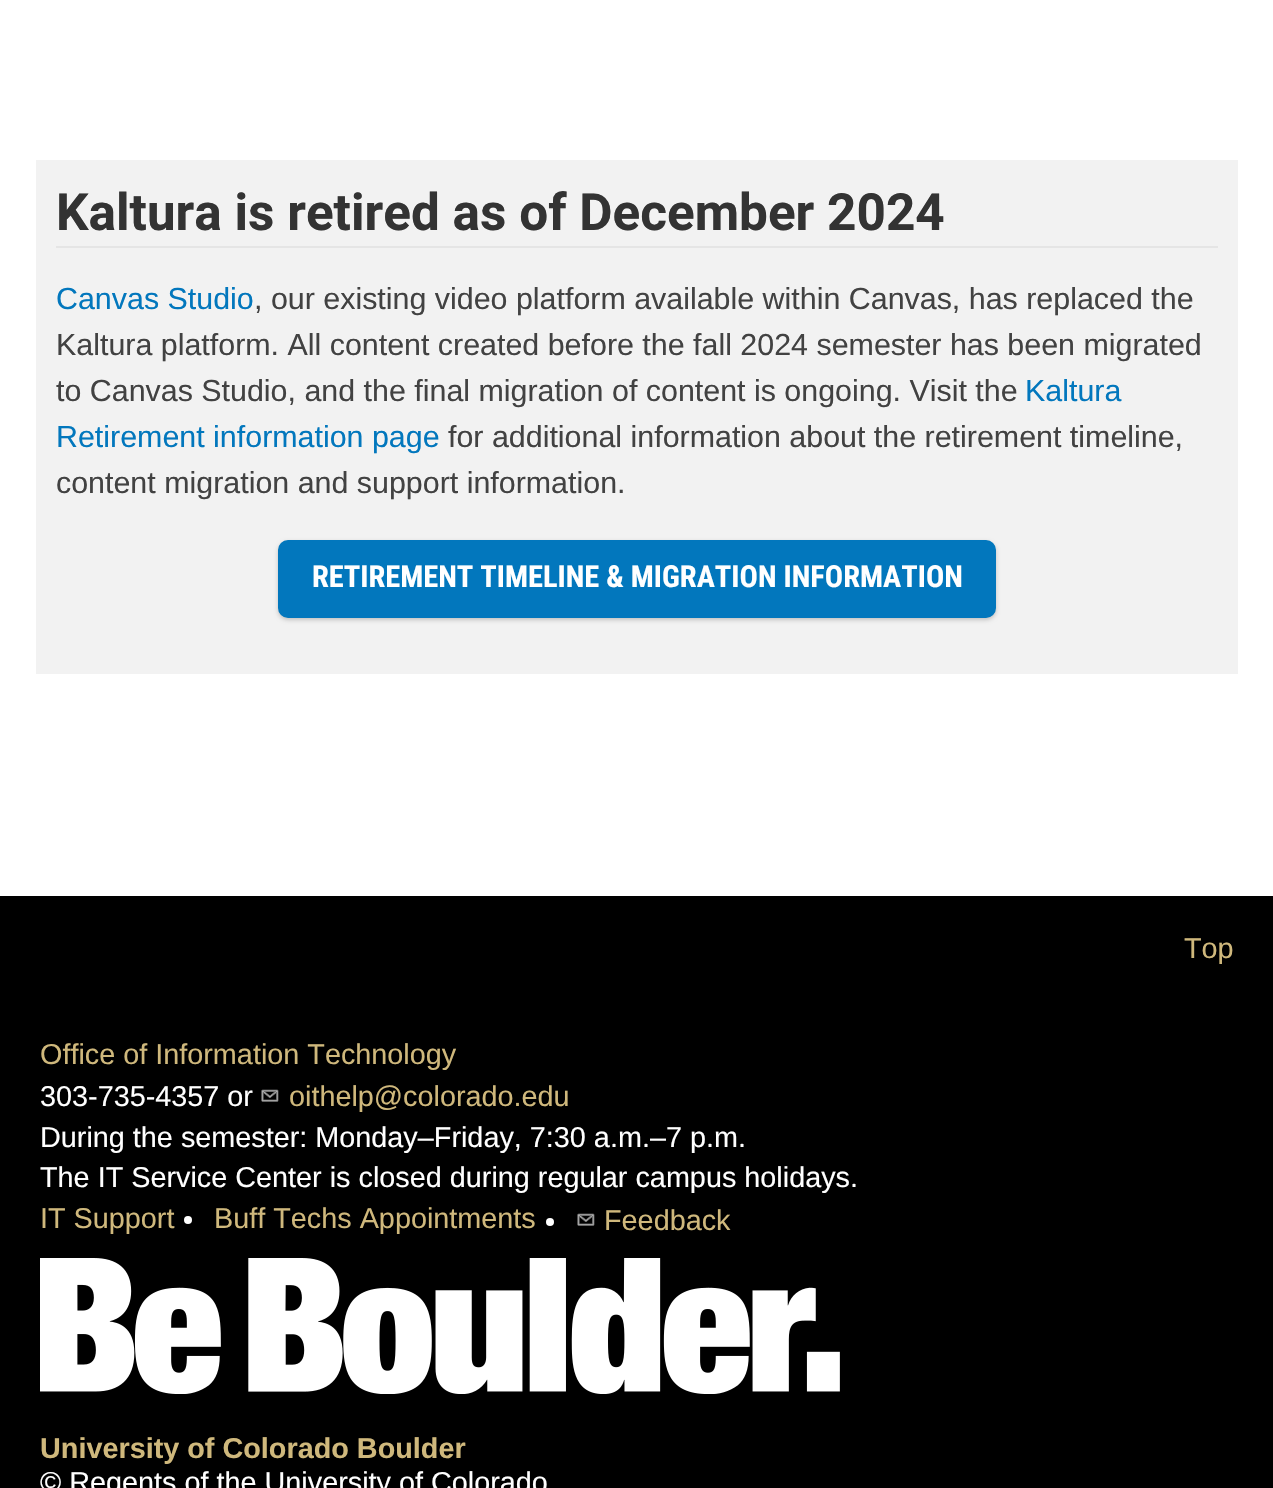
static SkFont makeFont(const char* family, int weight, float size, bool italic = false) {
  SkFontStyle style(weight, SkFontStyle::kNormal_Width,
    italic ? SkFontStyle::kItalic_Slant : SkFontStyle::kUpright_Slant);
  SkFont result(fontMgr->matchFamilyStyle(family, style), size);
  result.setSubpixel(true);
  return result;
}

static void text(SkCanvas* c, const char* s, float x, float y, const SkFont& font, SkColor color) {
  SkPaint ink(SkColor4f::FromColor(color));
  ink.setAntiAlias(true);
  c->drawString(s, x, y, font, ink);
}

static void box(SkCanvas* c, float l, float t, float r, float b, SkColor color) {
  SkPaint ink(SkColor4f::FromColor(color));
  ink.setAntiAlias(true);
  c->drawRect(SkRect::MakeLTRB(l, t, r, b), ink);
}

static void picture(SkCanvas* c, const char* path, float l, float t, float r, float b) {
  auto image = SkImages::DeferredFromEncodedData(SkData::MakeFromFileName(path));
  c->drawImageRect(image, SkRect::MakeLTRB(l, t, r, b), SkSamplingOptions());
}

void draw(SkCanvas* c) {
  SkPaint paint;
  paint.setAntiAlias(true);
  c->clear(0xffffffff);
  box(c, 36, 160, 1238, 674, 0xfff2f2f2);
  box(c, 56, 246, 1218, 248, 0xffe5e5e5);
  SkFont face1 = makeFont("Roboto", 700, 51.25f);
  text(c, "Kaltura is retired as of December 2024", 56, 230, face1, 0xff333333);
  SkFont face2 = makeFont("Liberation Sans", 400, 30.4f);
  text(c, "Canvas Studio", 56, 309, face2, 0xff0277bd);
  text(c, ", our existing video platform available within Canvas, has replaced the", 254, 309, face2, 0xff424242);
  text(c, "Kaltura platform. All content created before the fall 2024 semester has been migrated", 56, 355, face2, 0xff424242);
  text(c, "to Canvas Studio, and the final migration of content is ongoing. Visit the", 56, 401, face2, 0xff424242);
  text(c, "Kaltura", 1025, 401, face2, 0xff0277bd);
  text(c, "Retirement information page", 56, 447, face2, 0xff0277bd);
  text(c, "for additional information about the retirement timeline,", 448, 447, face2, 0xff424242);
  text(c, "content migration and support information.", 56, 493, face2, 0xff424242);
  paint.setColor(0x33000000);
  paint.setMaskFilter(SkMaskFilter::MakeBlur(kNormal_SkBlurStyle, 2));
  c->drawRoundRect(SkRect::MakeLTRB(278, 542, 996, 620), 10, 10, paint);
  paint.setMaskFilter(nullptr);
  paint.setColor(0xff0277bd);
  c->drawRoundRect(SkRect::MakeLTRB(279, 541, 995, 617), 9, 9, paint);
  paint.setStyle(SkPaint::kStroke_Style);
  paint.setStrokeWidth(2);
  c->drawRoundRect(SkRect::MakeLTRB(279, 541, 995, 617), 9, 9, paint);
  SkFont face3 = makeFont("Roboto Condensed", 700, 30.4f);
  text(c, "RETIREMENT TIMELINE & MIGRATION INFORMATION", 312, 587, face3, 0xffffffff);
  box(c, 0, 896, 1273, 1488, 0xff000000);
  SkFont face4 = makeFont("Liberation Sans", 400, 28.8f);
  text(c, "Top", 1184, 958, face4, 0xffcfb87c);
  text(c, "Office of Information Technology", 40, 1064, face4, 0xffcfb87c);
  text(c, "303-735-4357 or", 40, 1106, face4, 0xffffffff);
  picture(c, "img_01.png", 261, 1089, 279, 1102);
  text(c, "oithelp@colorado.edu", 289, 1106, face4, 0xffcfb87c);
  text(c, "During the semester: Monday–Friday, 7:30 a.m.–7 p.m.", 40, 1147, face4, 0xffffffff);
  text(c, "The IT Service Center is closed during regular campus holidays.", 40, 1187, face4, 0xffffffff);
  text(c, "IT Support", 40, 1228, face4, 0xffcfb87c);
  paint.setStyle(SkPaint::kFill_Style);
  paint.setColor(0xffffffff);
  c->drawCircle(188, 1220, 4, paint);
  text(c, "Buff Techs Appointments", 214, 1228, face4, 0xffcfb87c);
  c->drawCircle(550, 1222, 4, paint);
  picture(c, "img_01.png", 577, 1213, 595, 1226);
  text(c, "Feedback", 604, 1230, face4, 0xffcfb87c);
  picture(c, "img_02.png", 40, 1258, 840, 1394);
  SkFont face5 = makeFont("Liberation Sans", 700, 28.8f);
  text(c, "University of Colorado Boulder", 40, 1458, face5, 0xffcfb87c);
  text(c, "© Regents of the University of Colorado", 40, 1492, face4, 0xffffffff);
}
